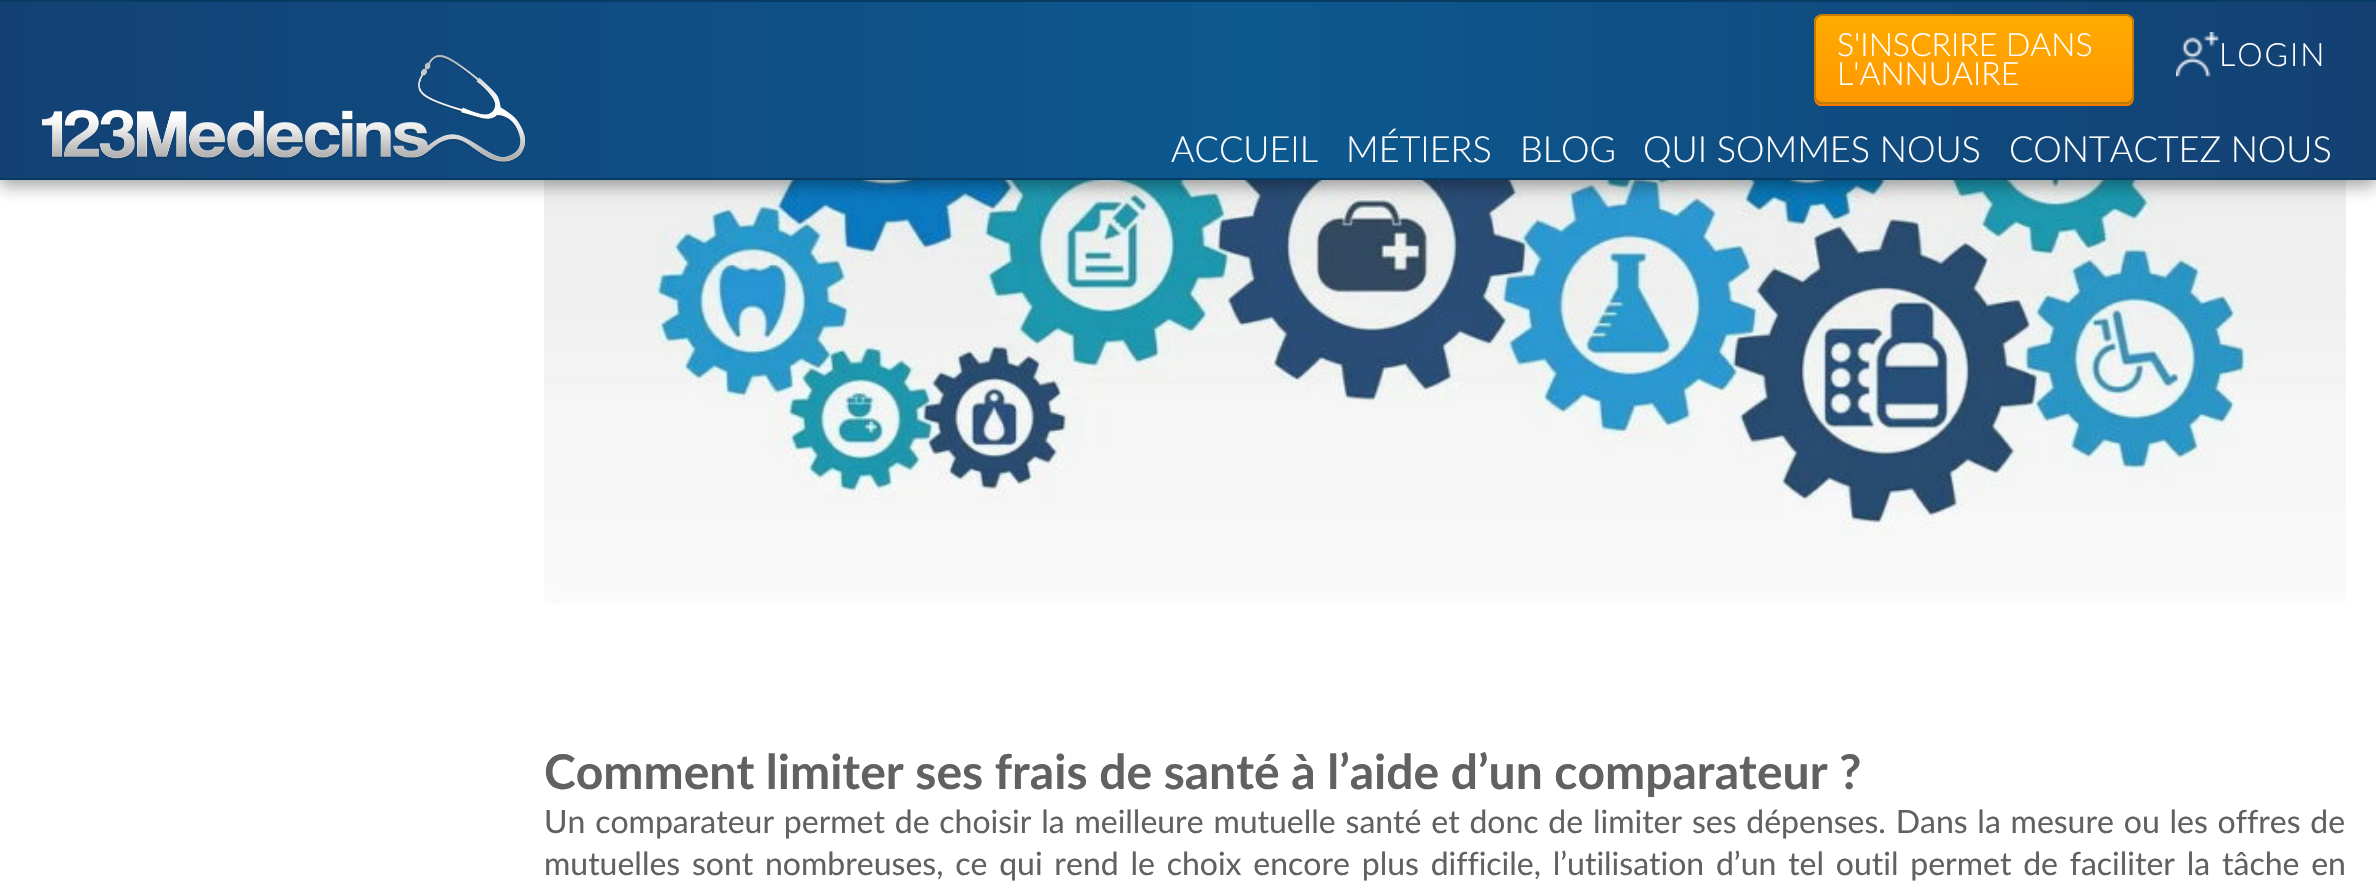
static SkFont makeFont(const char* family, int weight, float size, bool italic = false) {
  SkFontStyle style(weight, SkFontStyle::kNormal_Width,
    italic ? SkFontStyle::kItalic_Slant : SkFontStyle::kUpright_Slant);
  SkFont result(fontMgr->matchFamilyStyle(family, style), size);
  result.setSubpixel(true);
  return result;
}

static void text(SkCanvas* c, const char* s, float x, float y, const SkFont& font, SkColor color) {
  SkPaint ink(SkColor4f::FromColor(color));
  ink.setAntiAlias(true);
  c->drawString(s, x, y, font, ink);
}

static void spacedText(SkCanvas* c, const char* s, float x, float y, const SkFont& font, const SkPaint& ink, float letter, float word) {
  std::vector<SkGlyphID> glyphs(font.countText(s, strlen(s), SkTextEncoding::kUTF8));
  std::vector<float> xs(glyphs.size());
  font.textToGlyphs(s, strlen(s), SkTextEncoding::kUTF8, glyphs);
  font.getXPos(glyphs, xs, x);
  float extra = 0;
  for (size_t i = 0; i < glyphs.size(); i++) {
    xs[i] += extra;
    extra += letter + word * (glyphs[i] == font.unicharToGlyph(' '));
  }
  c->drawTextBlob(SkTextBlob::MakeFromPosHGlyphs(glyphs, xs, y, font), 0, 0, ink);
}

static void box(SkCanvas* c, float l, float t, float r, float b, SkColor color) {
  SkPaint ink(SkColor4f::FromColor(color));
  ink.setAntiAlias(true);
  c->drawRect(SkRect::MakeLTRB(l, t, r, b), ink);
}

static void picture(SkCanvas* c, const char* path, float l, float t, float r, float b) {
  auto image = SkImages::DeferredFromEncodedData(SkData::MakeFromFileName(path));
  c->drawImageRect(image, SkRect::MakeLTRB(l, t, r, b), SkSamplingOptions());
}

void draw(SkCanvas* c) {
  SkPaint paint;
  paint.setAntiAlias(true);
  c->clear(0xffffffff);
  picture(c, "img_03.png", 544, 180, 2346, 604);
  paint.setColor(0x5c000000);
  paint.setMaskFilter(SkMaskFilter::MakeBlur(kNormal_SkBlurStyle, 8));
  c->drawRect(SkRect::MakeLTRB(0, 6, 2376, 186), paint);
  paint.setMaskFilter(nullptr);
  {
    const SkColor colors[] = {0xff144072, 0xff0c5990, 0xff134174};
    const float stops[] = {0, 0.47f, 1};
    const SkPoint ends[] = {{2376, 89}, {0, 89}};
    paint.setShader(SkGradientShader::MakeLinear(ends, colors, stops, 3, SkTileMode::kClamp));
    paint.setAlpha(255);
  }
  c->drawRect(SkRect::MakeLTRB(0, 2, 2376, 178), paint);
  box(c, 0, 0, 2376, 2, 0xff063b63);
  box(c, 0, 178, 2376, 180, 0xff063b63);
  picture(c, "img_01.png", 41, 55, 526, 163);
  paint.setShader(nullptr);
  paint.setColor(0xfff57c00);
  c->drawPath(SkPathBuilder().moveTo(1814, 96).cubicTo(1814, 100, 1815, 105, 1820, 106).lineTo(2128, 106).cubicTo(2133, 105, 2134, 100, 2134, 96).cubicTo(2134, 100, 2130, 104, 2126, 104).lineTo(1822, 104).cubicTo(1818, 104, 1814, 100, 1814, 96).close().detach(), paint);
  c->save();
  c->clipPath(SkPathBuilder().moveTo(1822, 14).lineTo(2126, 14).cubicTo(2130.5f, 14, 2134, 17.5f, 2134, 22).lineTo(2134, 96).cubicTo(2134, 100.5f, 2130.5f, 104, 2126, 104).lineTo(1822, 104).cubicTo(1817.5f, 104, 1814, 100.5f, 1814, 96).lineTo(1814, 22).cubicTo(1814, 17.5f, 1817.5f, 14, 1822, 14).close().detach(), true);
  {
    const SkColor colors[] = {0xff0a4774, 0xffff9800, 0xffffab00};
    const float stops[] = {0, 0, 1};
    const SkPoint ends[] = {{1974, 102}, {1974, 16}};
    paint.setShader(SkGradientShader::MakeLinear(ends, colors, stops, 3, SkTileMode::kClamp));
    paint.setAlpha(255);
  }
  c->drawRect(SkRect::MakeLTRB(1814, 16, 2134, 102), paint);
  c->restore();
  paint.setStyle(SkPaint::kStroke_Style);
  paint.setStrokeWidth(2);
  paint.setShader(nullptr);
  paint.setColor(0xffc37c00);
  c->drawRoundRect(SkRect::MakeLTRB(1815, 15, 2133, 103), 7, 7, paint);
  SkFont face1 = makeFont("Lato", 300, 32);
  text(c, "S'INSCRIRE DANS", 1837, 56, face1, 0xffffffff);
  text(c, "L'ANNUAIRE", 1837, 85, face1, 0xffffffff);
  picture(c, "img_02.png", 2176, 32, 2219, 77);
  paint.setStyle(SkPaint::kFill_Style);
  paint.setColor(0xffffffff);
  spacedText(c, "LOGIN", 2219, 66, face1, paint, 2, 0);
  SkFont face2 = makeFont("Lato", 300, 36);
  text(c, "ACCUEIL", 1171, 162, face2, 0xffffffff);
  text(c, "MÉTIERS", 1346, 162, face2, 0xffffffff);
  text(c, "BLOG", 1520, 162, face2, 0xffffffff);
  text(c, "QUI SOMMES NOUS", 1643, 162, face2, 0xffffffff);
  text(c, "CONTACTEZ NOUS", 2009, 162, face2, 0xffffffff);
  SkFont face3 = makeFont("Lato", 700, 48);
  text(c, "Comment limiter ses frais de santé à l’aide d’un comparateur ?", 544, 789, face3, 0xff616161);
  SkFont face4 = makeFont("Lato", 400, 32);
  paint.setColor(0xff616161);
  spacedText(c, "Un comparateur permet de choisir la meilleure mutuelle santé et donc de limiter ses dépenses. Dans la mesure ou les offres de", 544, 833, face4, paint, 0, 1.6f);
  spacedText(c, "mutuelles sont nombreuses, ce qui rend le choix encore plus difficile, l’utilisation d’un tel outil permet de faciliter la tâche en", 544, 875, face4, paint, 0, 3.6f);
}
